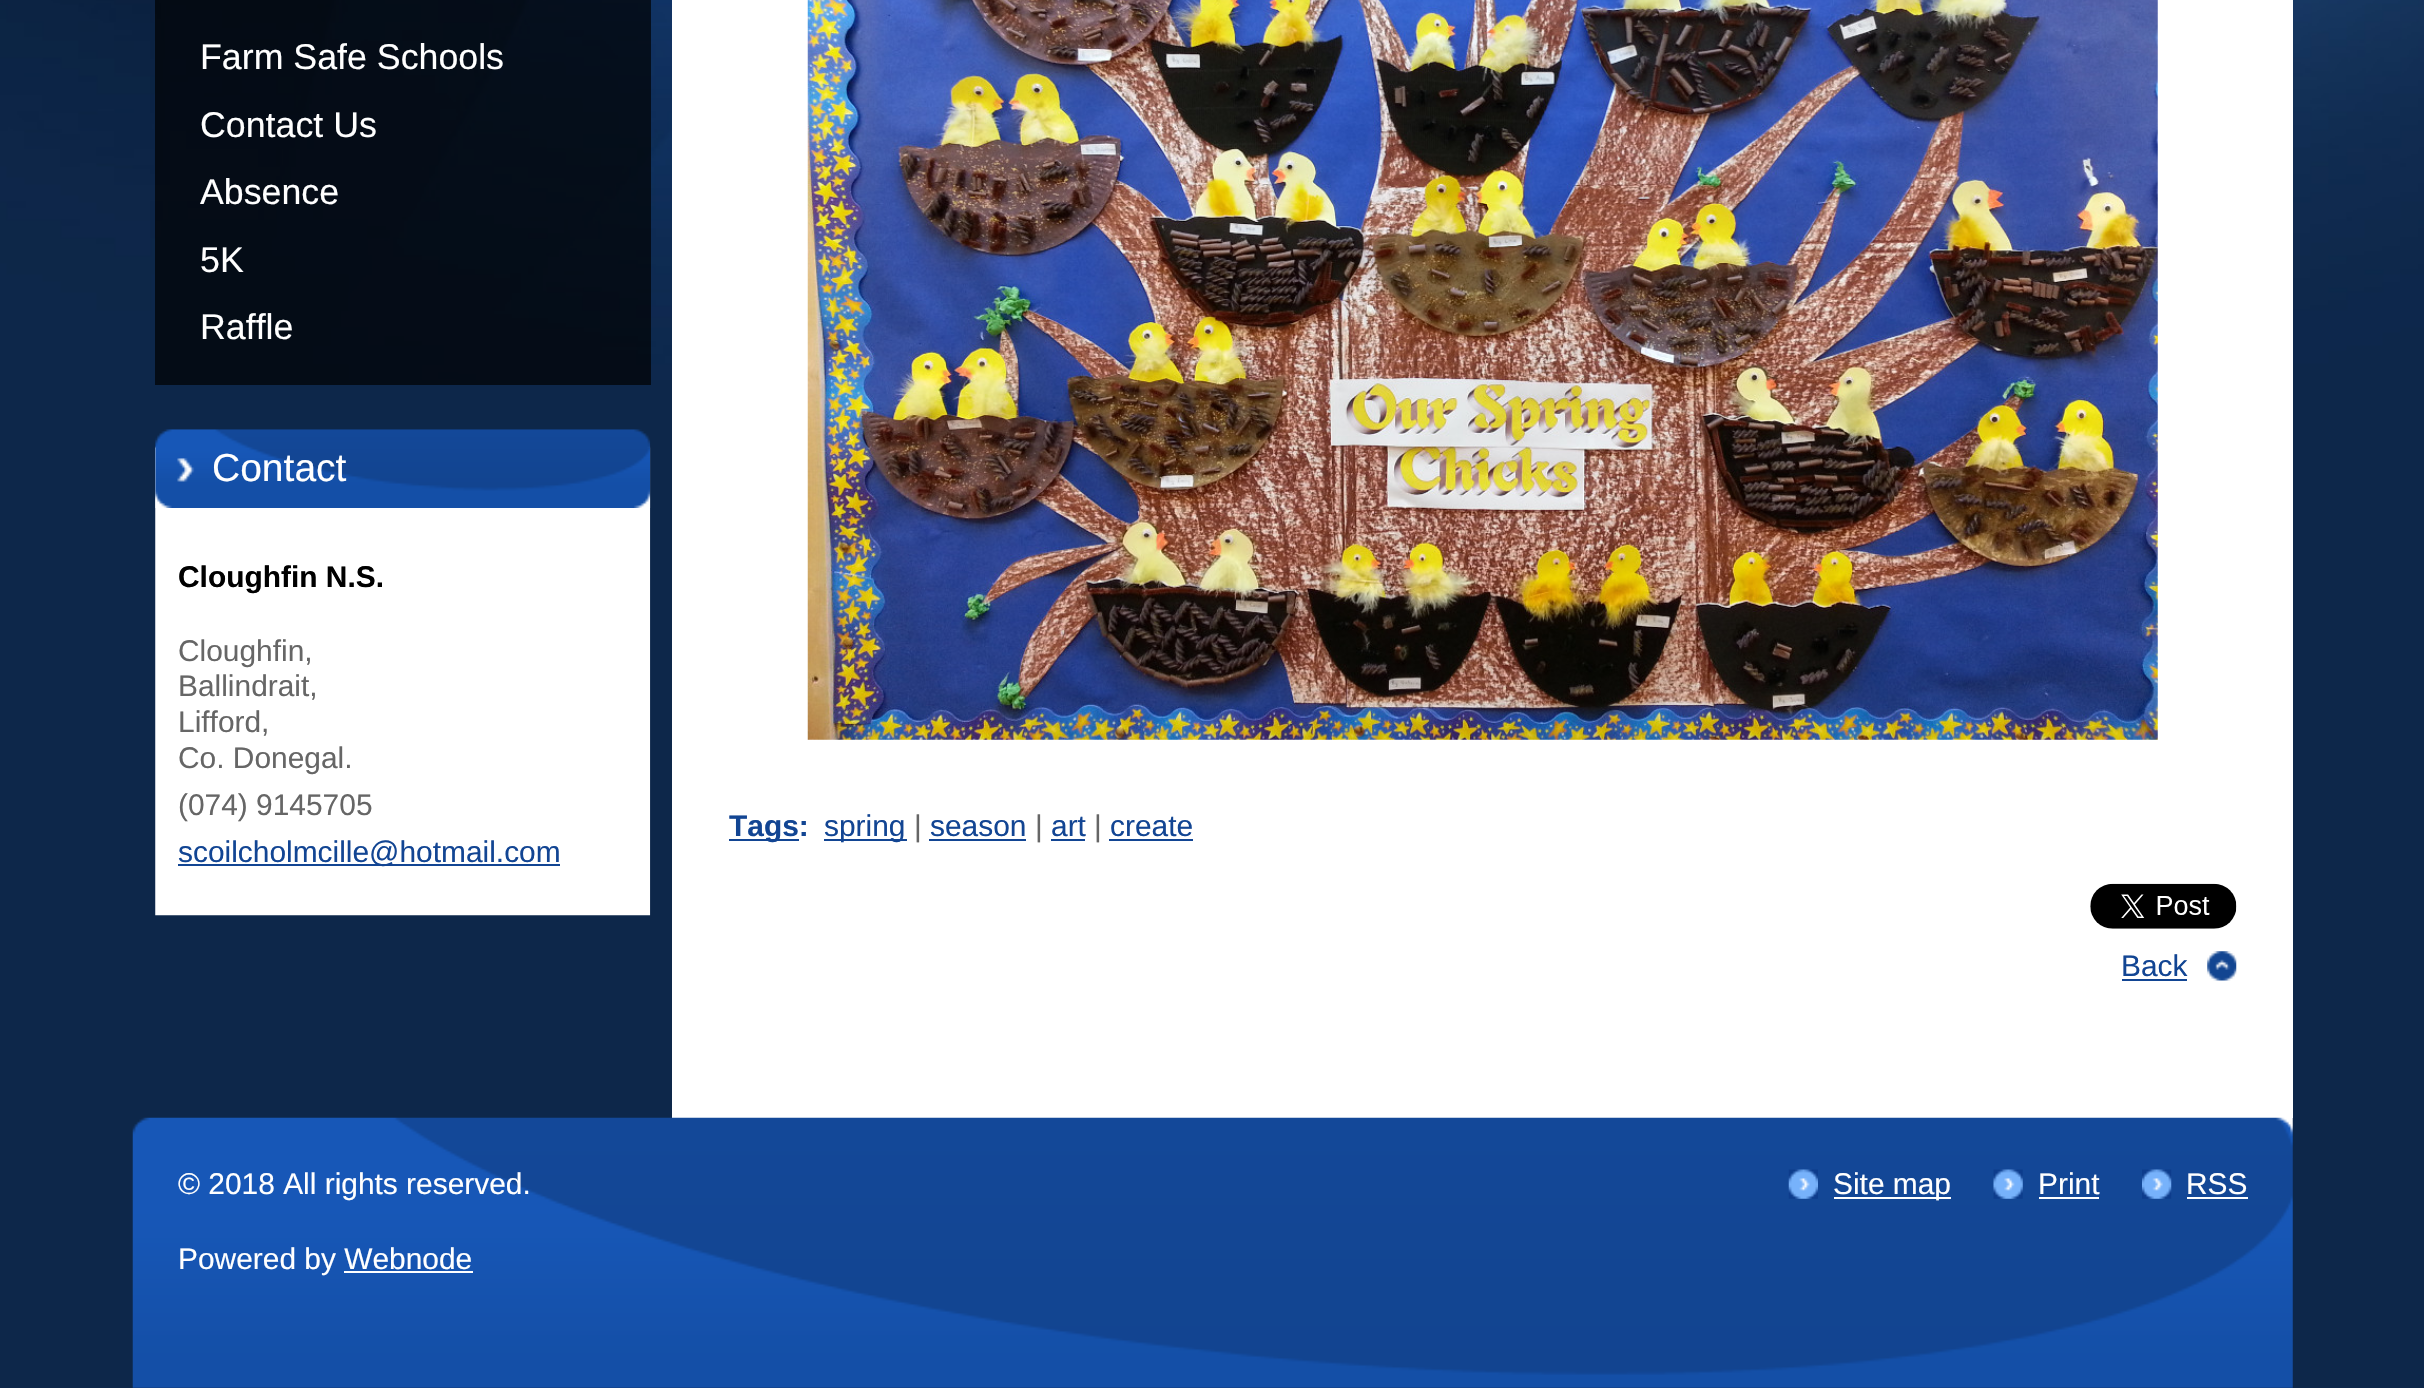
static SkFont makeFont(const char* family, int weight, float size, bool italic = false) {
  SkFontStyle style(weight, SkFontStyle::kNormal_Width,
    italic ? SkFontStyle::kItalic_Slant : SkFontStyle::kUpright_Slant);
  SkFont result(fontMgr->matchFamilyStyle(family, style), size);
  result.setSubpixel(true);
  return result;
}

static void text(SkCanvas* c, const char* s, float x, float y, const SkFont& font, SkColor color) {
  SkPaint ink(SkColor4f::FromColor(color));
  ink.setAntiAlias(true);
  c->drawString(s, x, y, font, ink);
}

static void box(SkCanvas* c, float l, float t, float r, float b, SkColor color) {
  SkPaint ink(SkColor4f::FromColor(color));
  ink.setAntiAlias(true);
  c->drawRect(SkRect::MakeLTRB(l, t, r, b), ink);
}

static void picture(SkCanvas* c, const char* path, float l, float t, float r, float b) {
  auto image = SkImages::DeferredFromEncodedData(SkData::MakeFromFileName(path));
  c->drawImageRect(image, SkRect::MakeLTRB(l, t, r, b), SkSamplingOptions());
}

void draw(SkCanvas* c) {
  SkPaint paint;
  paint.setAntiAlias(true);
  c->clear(0xff0d274a);
  picture(c, "img_01.png", 0, 0, 2424, 380);
  box(c, 672, 0, 2293, 1118, 0xffffffff);
  box(c, 155, 0, 651, 385, 0xb3000000);
  SkFont face1 = makeFont("Liberation Sans", 400, 35.75f);
  text(c, "Farm Safe Schools", 200, 69, face1, 0xffffffff);
  text(c, "Contact Us", 200, 137, face1, 0xffffffff);
  text(c, "Absence", 200, 204, face1, 0xffffffff);
  text(c, "5K", 200, 272, face1, 0xffffffff);
  text(c, "Raffle", 200, 339, face1, 0xffffffff);
  picture(c, "img_02.png", 155, 446, 651, 916);
  picture(c, "img_03.png", 155, 429, 651, 508);
  SkFont face2 = makeFont("Liberation Sans", 400, 39);
  text(c, "Contact", 212, 481, face2, 0xffffffff);
  SkFont face3 = makeFont("Liberation Sans", 700, 29.9f);
  text(c, "Cloughfin N.S.", 178, 587, face3, 0xff000000);
  SkFont face4 = makeFont("Liberation Sans", 400, 29.9f);
  text(c, "Cloughfin,", 178, 661, face4, 0xff666666);
  text(c, "Ballindrait,", 178, 696, face4, 0xff666666);
  text(c, "Lifford,", 178, 732, face4, 0xff666666);
  text(c, "Co. Donegal.", 178, 768, face4, 0xff666666);
  text(c, "(074) 9145705", 178, 815, face4, 0xff666666);
  box(c, 178, 864, 560, 866, 0xff124593);
  text(c, "scoilcholmcille@hotmail.com", 178, 862, face4, 0xff124593);
  picture(c, "img_04.png", 807, 0, 2158, 740);
  box(c, 729, 839, 799, 841, 0xff124593);
  text(c, "Tags:", 729, 836, face3, 0xff124593);
  box(c, 824, 839, 907, 841, 0xff124593);
  text(c, "spring", 824, 836, face4, 0xff124593);
  text(c, "|", 914, 836, face4, 0xff666666);
  text(c, "season", 930, 836, face4, 0xff124593);
  box(c, 929, 839, 1026, 841, 0xff124593);
  text(c, "|", 1035, 836, face4, 0xff666666);
  text(c, "art", 1051, 836, face4, 0xff124593);
  box(c, 1051, 839, 1085, 841, 0xff124593);
  text(c, "|", 1094, 836, face4, 0xff666666);
  text(c, "create", 1110, 836, face4, 0xff124593);
  box(c, 1109, 839, 1193, 841, 0xff124593);
  picture(c, "img_05.png", 2090, 883, 2237, 929);
  picture(c, "img_06.png", 2207, 951, 2237, 981);
  text(c, "Back", 2121, 976, face4, 0xff124593);
  box(c, 2122, 979, 2187, 981, 0xff124593);
  picture(c, "img_07.png", 132, 1117, 2293, 1388);
  text(c, "© 2018 All rights reserved.", 178, 1194, face4, 0xffffffff);
  text(c, "Powered by Webnode", 178, 1269, face4, 0xffffffff);
  box(c, 344, 1271, 473, 1273, 0xffffffff);
  picture(c, "img_08.png", 1788, 1169, 1818, 1199);
  box(c, 1834, 1197, 1951, 1199, 0xffffffff);
  text(c, "Site map", 1833, 1194, face4, 0xffffffff);
  picture(c, "img_09.png", 1993, 1169, 2023, 1199);
  text(c, "Print", 2038, 1194, face4, 0xffffffff);
  box(c, 2039, 1197, 2099, 1199, 0xffffffff);
  picture(c, "img_10.png", 2142, 1169, 2172, 1199);
  text(c, "RSS", 2186, 1194, face4, 0xffffffff);
  box(c, 2187, 1197, 2248, 1199, 0xffffffff);
}
